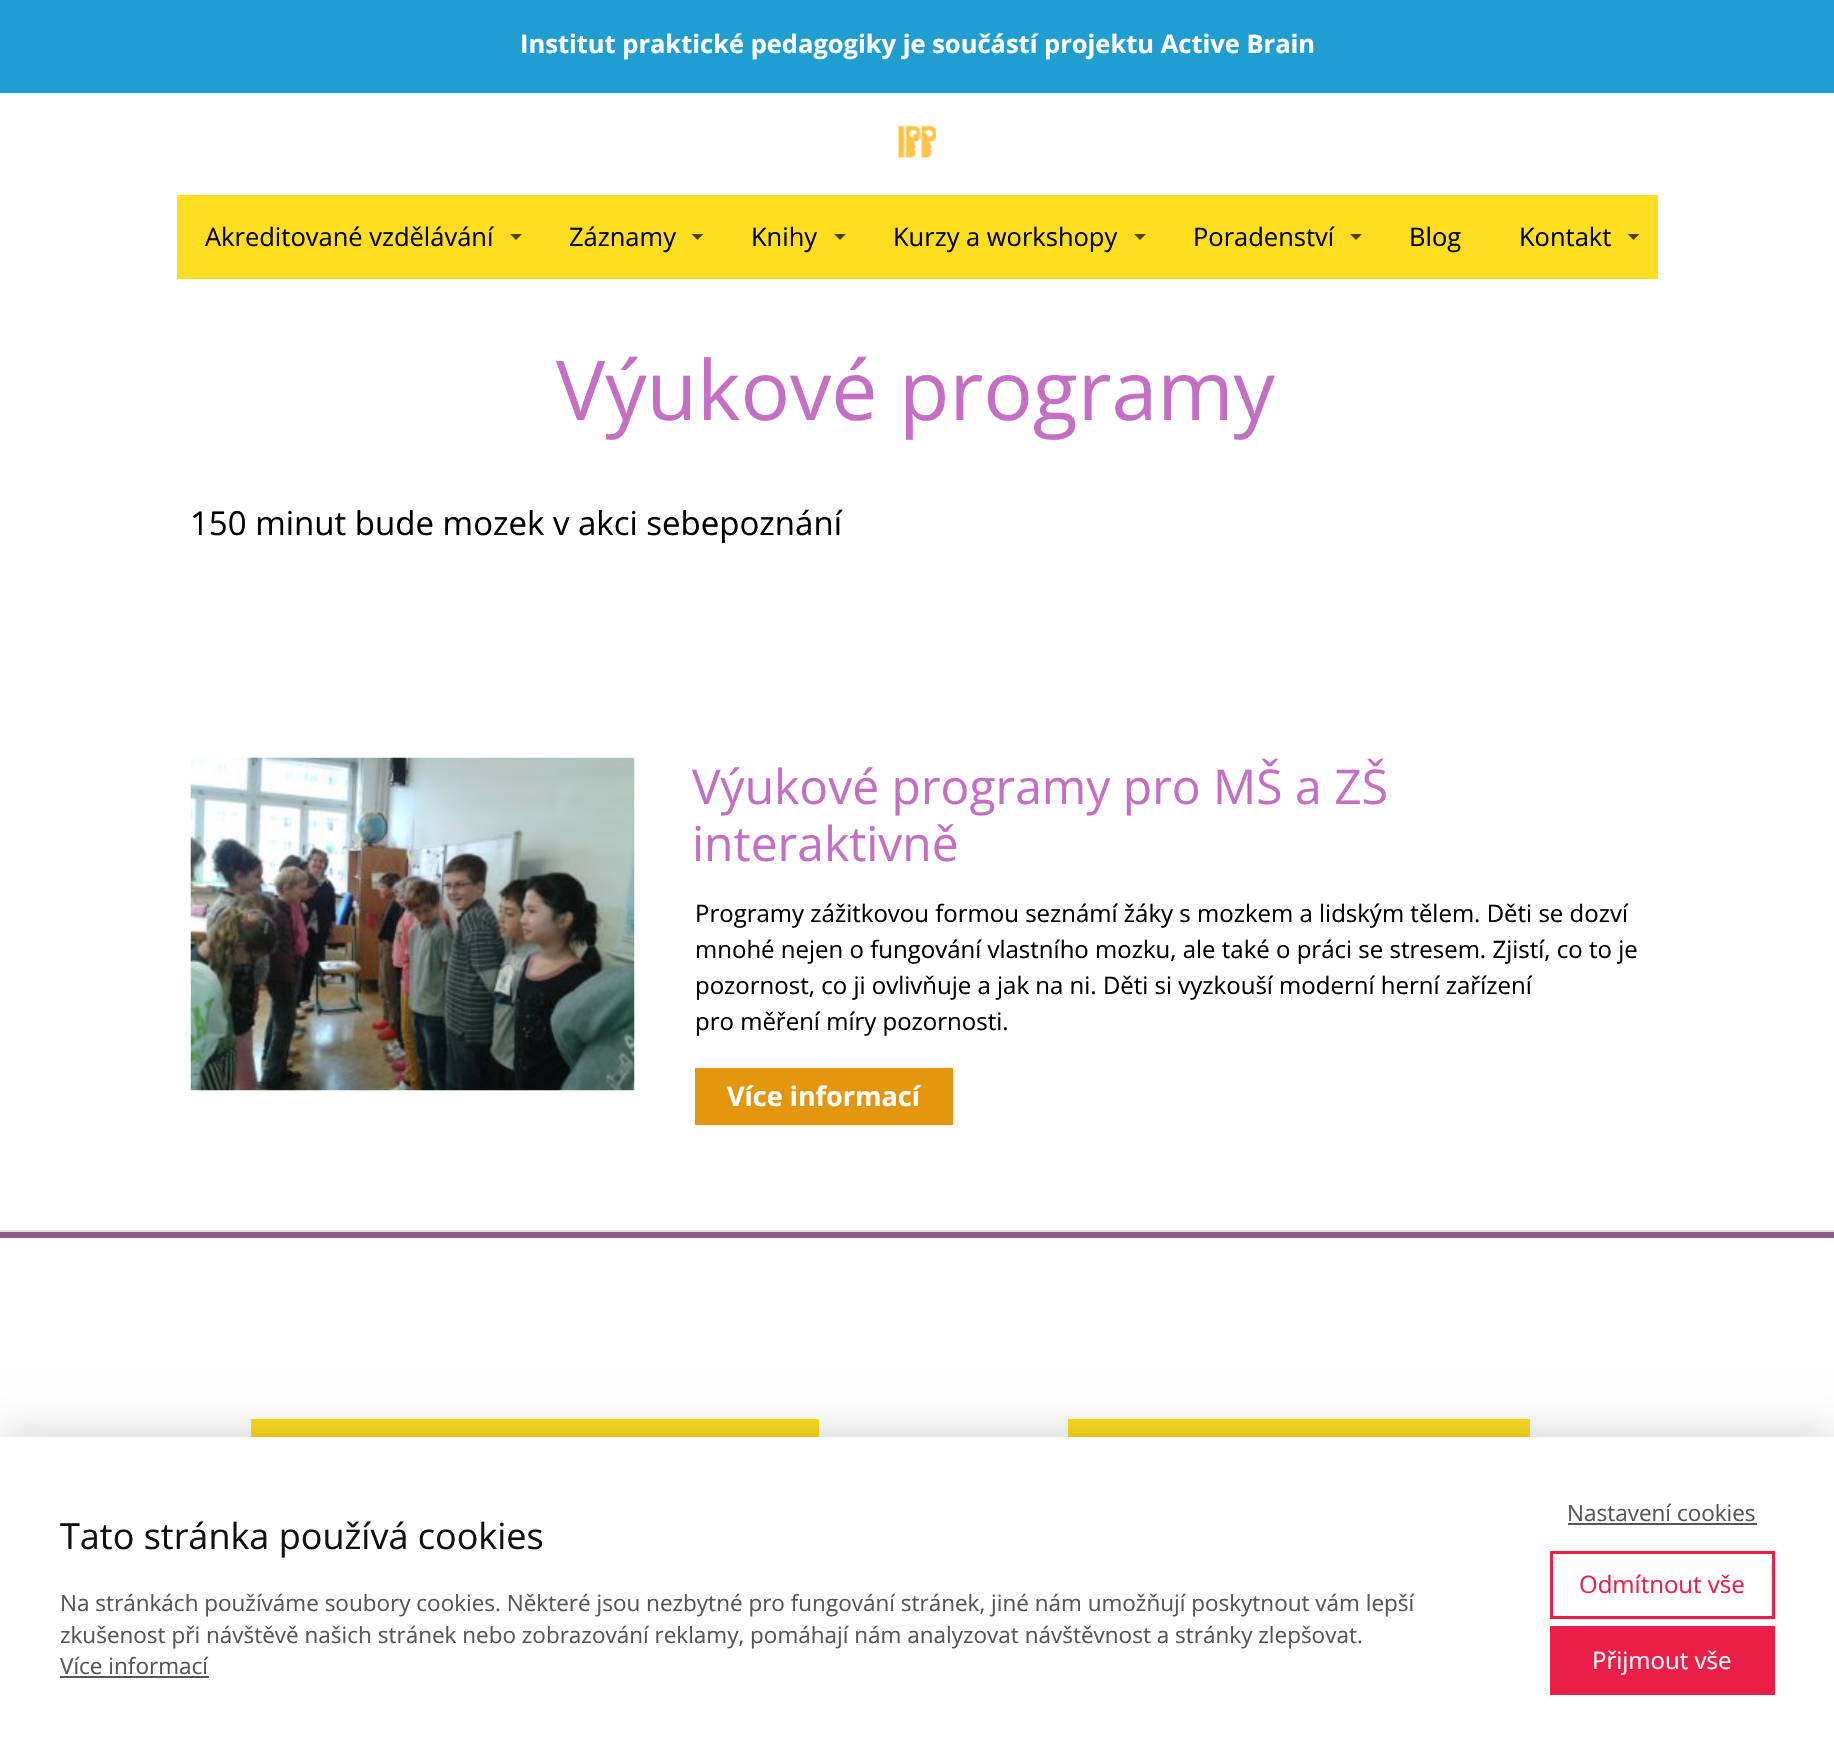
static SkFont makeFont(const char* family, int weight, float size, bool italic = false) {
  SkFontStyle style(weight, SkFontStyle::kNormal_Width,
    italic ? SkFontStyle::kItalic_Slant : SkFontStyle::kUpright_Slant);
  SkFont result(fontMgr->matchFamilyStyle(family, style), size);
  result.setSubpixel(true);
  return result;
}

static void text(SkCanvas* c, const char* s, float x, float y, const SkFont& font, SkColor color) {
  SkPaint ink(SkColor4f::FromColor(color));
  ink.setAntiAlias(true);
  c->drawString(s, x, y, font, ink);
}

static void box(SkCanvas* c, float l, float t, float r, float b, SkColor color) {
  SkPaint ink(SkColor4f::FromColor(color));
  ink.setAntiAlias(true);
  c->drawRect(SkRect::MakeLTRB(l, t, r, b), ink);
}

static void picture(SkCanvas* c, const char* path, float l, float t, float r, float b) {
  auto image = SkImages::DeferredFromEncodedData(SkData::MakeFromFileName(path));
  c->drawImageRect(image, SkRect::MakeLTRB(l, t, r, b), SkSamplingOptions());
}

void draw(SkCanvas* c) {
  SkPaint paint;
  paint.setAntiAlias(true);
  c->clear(0xffffffff);
  box(c, 0, 0, 1834, 93, 0xff219ed1);
  SkFont face1 = makeFont("Open Sans", 700, 25.5f);
  text(c, "Institut praktické pedagogiky je součástí projektu Active Brain", 520, 53, face1, 0xffffffff);
  picture(c, "img_01.png", 898, 125, 936, 159);
  box(c, 177, 195, 1658, 279, 0xffffde21);
  SkFont face2 = makeFont("Open Sans", 400, 25.5f);
  text(c, "Akreditované vzdělávání", 205, 246, face2, 0xff000000);
  paint.setColor(0xff4d430a);
  c->drawPath(SkPathBuilder().moveTo(510, 234).lineTo(522, 234).lineTo(516, 240).close().detach(), paint);
  text(c, "Záznamy", 569, 246, face2, 0xff000000);
  c->drawPath(SkPathBuilder().moveTo(691.5f, 234).lineTo(703.5f, 234).lineTo(697.5f, 240).close().detach(), paint);
  text(c, "Knihy", 751, 246, face2, 0xff000000);
  c->drawPath(SkPathBuilder().moveTo(834, 234).lineTo(846, 234).lineTo(840, 240).close().detach(), paint);
  text(c, "Kurzy a workshopy", 893, 246, face2, 0xff000000);
  c->drawPath(SkPathBuilder().moveTo(1134, 234).lineTo(1146, 234).lineTo(1140, 240).close().detach(), paint);
  text(c, "Poradenství", 1193, 246, face2, 0xff000000);
  c->drawPath(SkPathBuilder().moveTo(1350, 234).lineTo(1362, 234).lineTo(1356, 240).close().detach(), paint);
  text(c, "Blog", 1409, 246, face2, 0xff000000);
  text(c, "Kontakt", 1519, 246, face2, 0xff000000);
  c->drawPath(SkPathBuilder().moveTo(1627.5f, 234).lineTo(1639.5f, 234).lineTo(1633.5f, 240).close().detach(), paint);
  SkFont face3 = makeFont("Open Sans", 400, 82.5f);
  text(c, "Výukové programy", 556, 420, face3, 0xffc46ec4);
  SkFont face4 = makeFont("Open Sans", 400, 33);
  text(c, "150 minut bude mozek v akci sebepoznání", 190, 535, face4, 0xff000000);
  box(c, 0, 1230, 1834, 1232, 0xffe0e0e0);
  picture(c, "img_02.png", 190, 757, 635, 1091);
  SkFont face5 = makeFont("Open Sans", 400, 48);
  text(c, "Výukové programy pro MŠ a ZŠ", 692, 804, face5, 0xffc46ec4);
  text(c, "interaktivně", 692, 861, face5, 0xffc46ec4);
  SkFont face6 = makeFont("Open Sans", 400, 24);
  text(c, "Programy zážitkovou formou seznámí žáky s mozkem a lidským tělem. Děti se dozví", 695, 922, face6, 0xff000000);
  text(c, "mnohé nejen o fungování vlastního mozku, ale také o práci se stresem. Zjistí, co to je", 695, 958, face6, 0xff000000);
  text(c, "pozornost, co ji ovlivňuje a jak na ni. Děti si vyzkouší moderní herní zařízení", 695, 994, face6, 0xff000000);
  text(c, "pro měření míry pozornosti.", 695, 1030, face6, 0xff000000);
  box(c, 695, 1068, 953, 1125, 0xffe4960e);
  SkFont face7 = makeFont("Open Sans", 700, 27);
  text(c, "Více informací", 727, 1106, face7, 0xffffffff);
  box(c, 0, 1232, 1834, 1238, 0xff8d5d8d);
  {
    const SkColor colors[] = {0xffffde21, 0xffffcc00};
    const float stops[] = {0, 1};
    const SkPoint ends[] = {{535, 1419}, {535, 1514}};
    paint.setShader(SkGradientShader::MakeLinear(ends, colors, stops, 2, SkTileMode::kClamp));
    paint.setAlpha(255);
  }
  c->drawRect(SkRect::MakeLTRB(251, 1419, 819, 1437), paint);
  {
    const SkColor colors[] = {0xffffde21, 0xffffcc00};
    const float stops[] = {0, 1};
    const SkPoint ends[] = {{1299, 1419}, {1299, 1514}};
    paint.setShader(SkGradientShader::MakeLinear(ends, colors, stops, 2, SkTileMode::kClamp));
    paint.setAlpha(255);
  }
  c->drawRect(SkRect::MakeLTRB(1068, 1419, 1530, 1437), paint);
  paint.setShader(nullptr);
  paint.setColor(0x33000000);
  paint.setMaskFilter(SkMaskFilter::MakeBlur(kNormal_SkBlurStyle, 22.5f));
  c->drawRect(SkRect::MakeLTRB(0, 1437, 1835, 1755), paint);
  paint.setMaskFilter(nullptr);
  box(c, 0, 1437, 1834, 1755, 0xffffffff);
  SkFont face8 = makeFont("Open Sans", 400, 36);
  text(c, "Tato stránka používá cookies", 60, 1549, face8, 0xff111111);
  SkFont face9 = makeFont("Open Sans", 400, 22.5f);
  text(c, "Na stránkách používáme soubory cookies. Některé jsou nezbytné pro fungování stránek, jiné nám umožňují poskytnout vám lepší", 60, 1611, face9, 0xff555555);
  text(c, "zkušenost při návštěvě našich stránek nebo zobrazování reklamy, pomáhají nám analyzovat návštěvnost a stránky zlepšovat.", 60, 1643, face9, 0xff555555);
  text(c, "Více informací", 60, 1674, face9, 0xff555555);
  box(c, 60, 1676, 209, 1678, 0xff555555);
  text(c, "Nastavení cookies", 1567, 1521, face9, 0xff555555);
  box(c, 1568, 1523, 1757, 1525, 0xff555555);
  paint.setStyle(SkPaint::kStroke_Style);
  paint.setStrokeWidth(3);
  paint.setColor(0xffeb1e47);
  c->drawRect(SkRect::MakeLTRB(1551.5f, 1552.5f, 1773.5f, 1617.5f), paint);
  text(c, "Odmítnout vše", 1579, 1593, face6, 0xffeb1e47);
  box(c, 1550, 1626, 1775, 1695, 0xffeb1e47);
  text(c, "Přijmout vše", 1592, 1669, face6, 0xffffffff);
}
